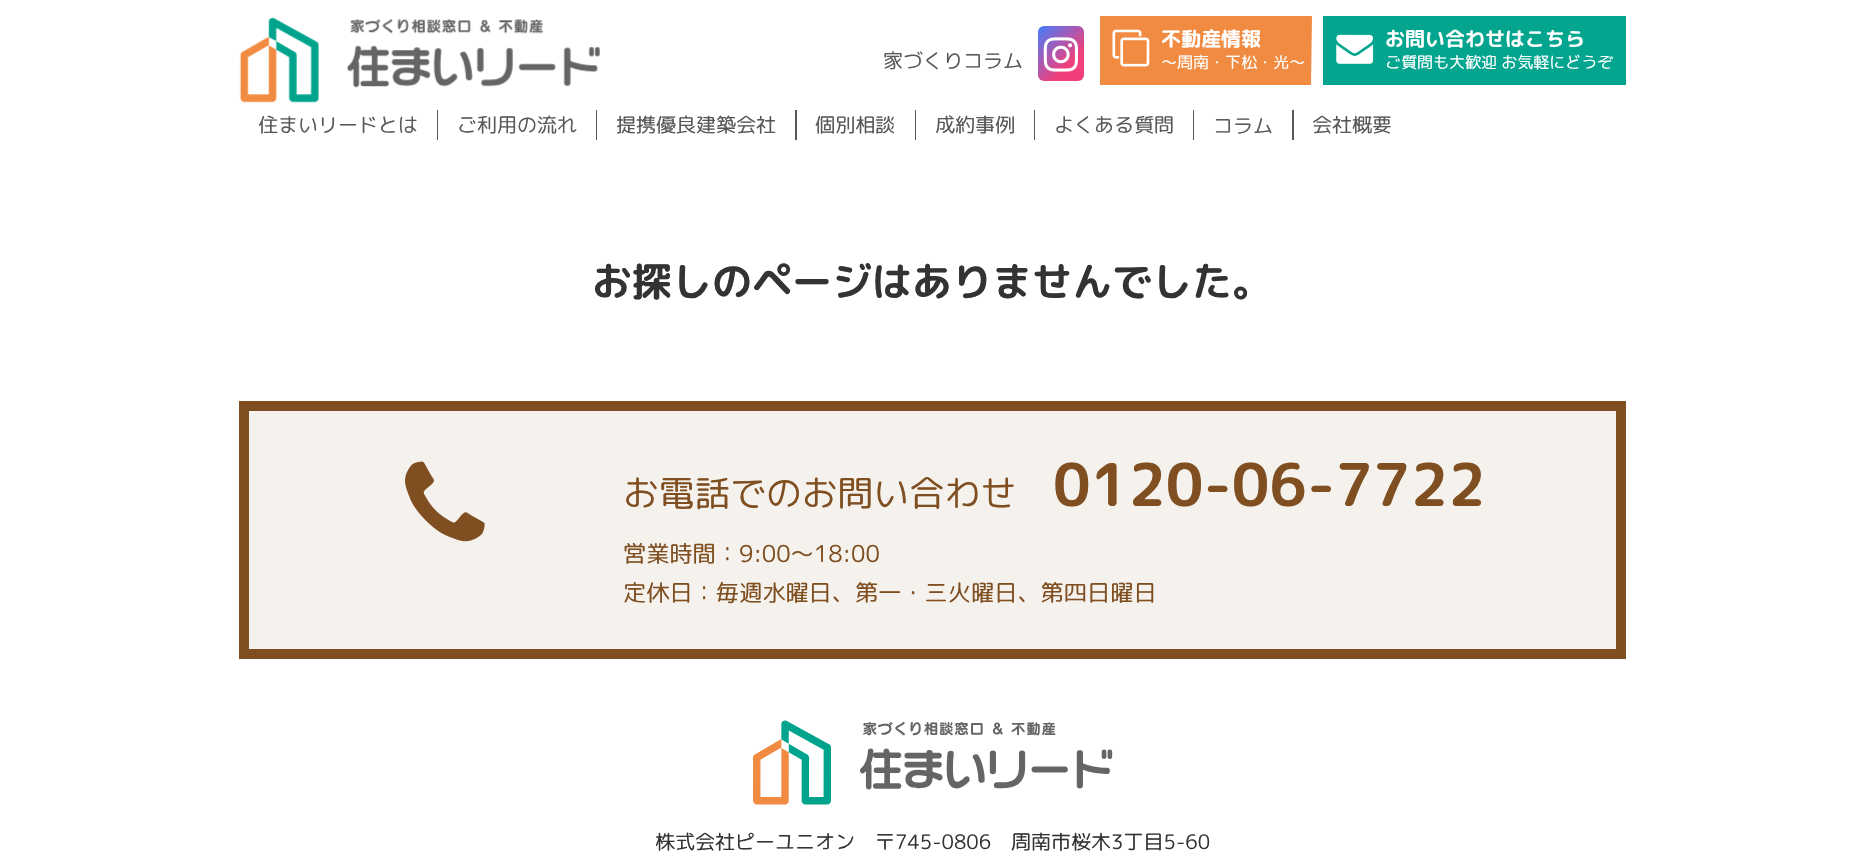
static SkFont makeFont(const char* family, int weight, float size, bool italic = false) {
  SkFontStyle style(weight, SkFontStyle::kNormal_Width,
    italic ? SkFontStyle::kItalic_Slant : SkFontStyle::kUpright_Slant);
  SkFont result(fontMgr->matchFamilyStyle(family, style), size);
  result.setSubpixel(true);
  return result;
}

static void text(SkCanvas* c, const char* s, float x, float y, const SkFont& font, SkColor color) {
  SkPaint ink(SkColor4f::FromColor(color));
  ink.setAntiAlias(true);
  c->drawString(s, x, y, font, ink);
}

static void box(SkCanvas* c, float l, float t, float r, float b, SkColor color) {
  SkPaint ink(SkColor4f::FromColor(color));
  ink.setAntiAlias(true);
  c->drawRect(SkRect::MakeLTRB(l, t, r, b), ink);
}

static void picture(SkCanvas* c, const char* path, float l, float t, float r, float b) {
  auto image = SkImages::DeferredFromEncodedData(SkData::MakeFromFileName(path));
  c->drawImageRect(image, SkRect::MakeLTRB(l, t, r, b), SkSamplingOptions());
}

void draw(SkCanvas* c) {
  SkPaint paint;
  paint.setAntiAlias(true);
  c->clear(0xffffffff);
  picture(c, "img_01.png", 239, 17, 600, 103);
  SkFont face1 = makeFont("Rounded Mplus 1c", 400, 20);
  text(c, "家づくりコラム", 883, 68, face1, 0xff595757);
  {
    const SkColor colors[] = {0xff427eff, 0xfff13f79};
    const float stops[] = {0, 0.7f};
    const SkPoint ends[] = {{1035, 28}, {1086, 79}};
    paint.setShader(SkGradientShader::MakeLinear(ends, colors, stops, 2, SkTileMode::kClamp));
    paint.setAlpha(255);
  }
  c->drawRoundRect(SkRect::MakeLTRB(1038, 26, 1084, 81), 6, 6, paint);
  picture(c, "img_02.png", 1043, 37, 1079, 72);
  paint.setShader(nullptr);
  paint.setColor(0xfff18b42);
  c->drawPath(SkPathBuilder().moveTo(1100, 16).lineTo(1312, 16).lineTo(1311, 85).lineTo(1100, 85).close().detach(), paint);
  picture(c, "img_03.png", 1112, 29, 1150, 67);
  SkFont face2 = makeFont("Rounded Mplus 1c Bold", 700, 20);
  text(c, "不動産情報", 1161, 46, face2, 0xffffffff);
  SkFont face3 = makeFont("Rounded Mplus 1c", 400, 16);
  text(c, "～周南・下松・光～", 1161, 68, face3, 0xffffffff);
  box(c, 1323, 16, 1626, 85, 0xff03a58f);
  picture(c, "img_04.png", 1336, 34, 1374, 64);
  text(c, "お問い合わせはこちら", 1385, 46, face2, 0xffffffff);
  text(c, "ご質問も大歓迎 お気軽にどうぞ", 1385, 68, face3, 0xffffffff);
  box(c, 437, 110, 438, 140, 0xff595757);
  text(c, "住まいリードとは", 258, 132, face1, 0xff595757);
  box(c, 596, 110, 597, 140, 0xff595757);
  text(c, "ご利用の流れ", 457, 132, face1, 0xff595757);
  box(c, 795, 110, 797, 140, 0xff595757);
  text(c, "提携優良建築会社", 616, 132, face1, 0xff595757);
  box(c, 915, 110, 916, 140, 0xff595757);
  text(c, "個別相談", 815, 132, face1, 0xff595757);
  box(c, 1034, 110, 1035, 140, 0xff595757);
  text(c, "成約事例", 935, 132, face1, 0xff595757);
  box(c, 1193, 110, 1194, 140, 0xff595757);
  text(c, "よくある質問", 1054, 132, face1, 0xff595757);
  box(c, 1292, 110, 1294, 140, 0xff595757);
  text(c, "コラム", 1213, 133, face1, 0xff595757);
  text(c, "会社概要", 1312, 132, face1, 0xff595757);
  SkFont face4 = makeFont("Rounded Mplus 1c Bold", 700, 40);
  text(c, "お探しのページはありませんでした。", 592, 296, face4, 0xff333333);
  paint.setColor(0xfff5f1ed);
  c->drawRect(SkRect::MakeLTRB(244, 406, 1621, 654), paint);
  paint.setStyle(SkPaint::kStroke_Style);
  paint.setStrokeWidth(10);
  paint.setColor(0xff7f4f21);
  c->drawRect(SkRect::MakeLTRB(244, 406, 1621, 654), paint);
  picture(c, "img_05.png", 405, 461, 485, 542);
  SkFont face5 = makeFont("Rounded Mplus 1c", 400, 35.75f);
  text(c, "お電話でのお問い合わせ", 623, 506, face5, 0xff7f4f21);
  SkFont face6 = makeFont("Rounded Mplus 1c Bold", 700, 58.75f);
  text(c, "0120-06-7722", 1053, 506, face6, 0xff7f4f21);
  SkFont face7 = makeFont("Rounded Mplus 1c", 400, 23.2f);
  text(c, "営業時間：9:00～18:00", 623, 562, face7, 0xff7f4f21);
  text(c, "定休日：毎週水曜日、第一・三火曜日、第四日曜日", 623, 601, face7, 0xff7f4f21);
  picture(c, "img_06.png", 753, 720, 1113, 805);
  text(c, "株式会社ピーユニオン　〒745-0806　周南市桜木3丁目5-60", 655, 849, face1, 0xff333333);
}
